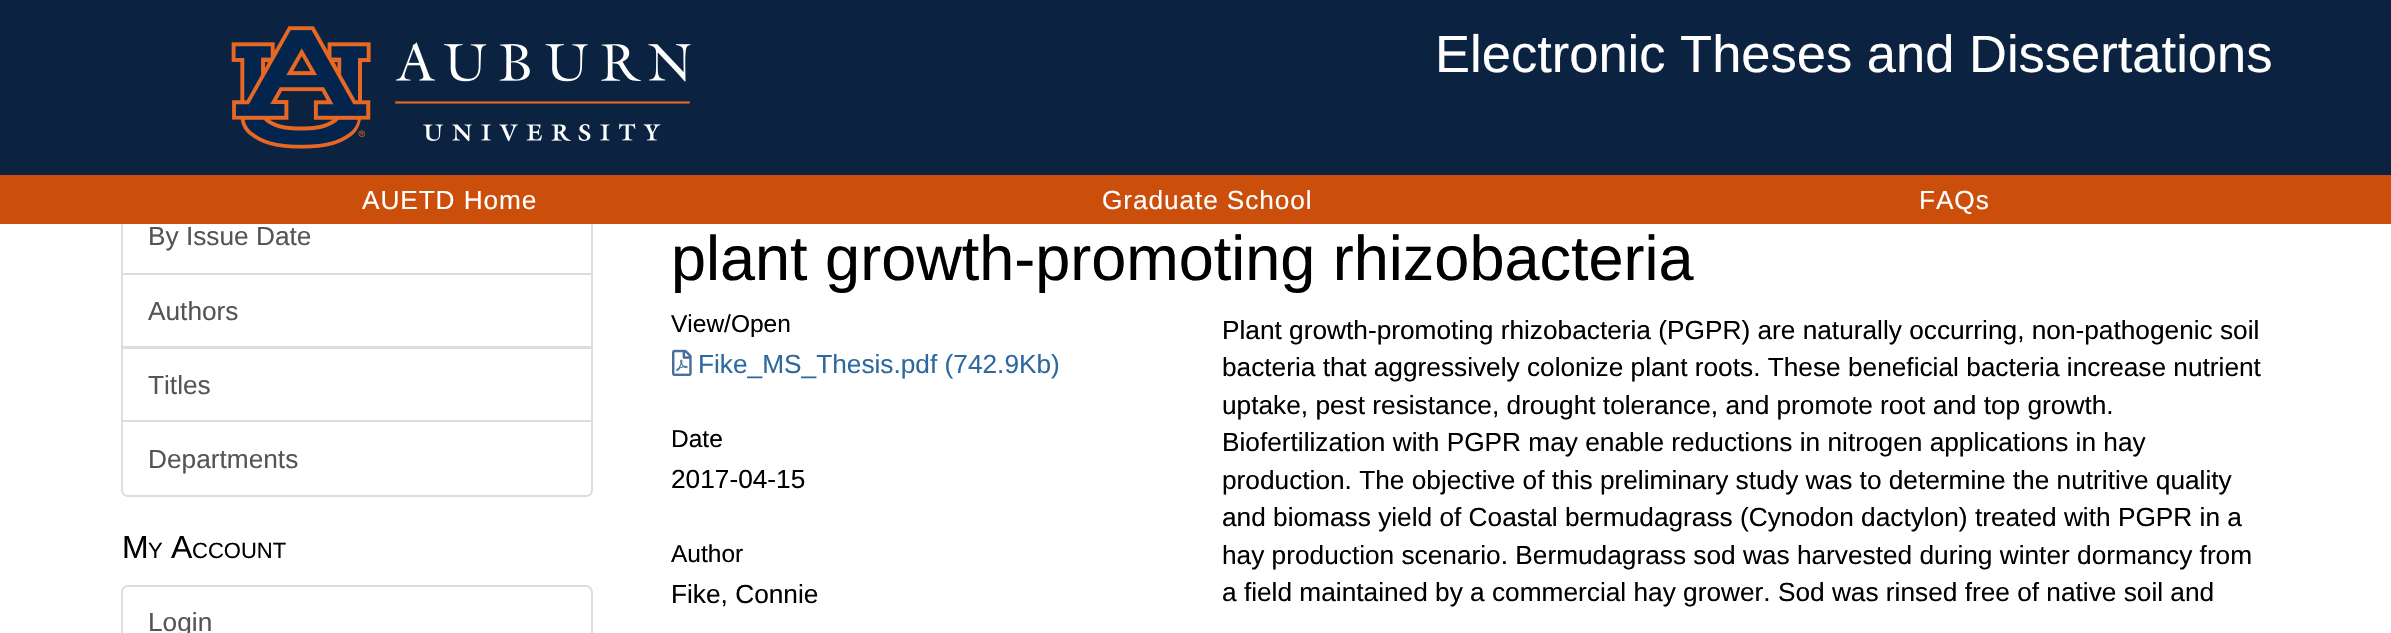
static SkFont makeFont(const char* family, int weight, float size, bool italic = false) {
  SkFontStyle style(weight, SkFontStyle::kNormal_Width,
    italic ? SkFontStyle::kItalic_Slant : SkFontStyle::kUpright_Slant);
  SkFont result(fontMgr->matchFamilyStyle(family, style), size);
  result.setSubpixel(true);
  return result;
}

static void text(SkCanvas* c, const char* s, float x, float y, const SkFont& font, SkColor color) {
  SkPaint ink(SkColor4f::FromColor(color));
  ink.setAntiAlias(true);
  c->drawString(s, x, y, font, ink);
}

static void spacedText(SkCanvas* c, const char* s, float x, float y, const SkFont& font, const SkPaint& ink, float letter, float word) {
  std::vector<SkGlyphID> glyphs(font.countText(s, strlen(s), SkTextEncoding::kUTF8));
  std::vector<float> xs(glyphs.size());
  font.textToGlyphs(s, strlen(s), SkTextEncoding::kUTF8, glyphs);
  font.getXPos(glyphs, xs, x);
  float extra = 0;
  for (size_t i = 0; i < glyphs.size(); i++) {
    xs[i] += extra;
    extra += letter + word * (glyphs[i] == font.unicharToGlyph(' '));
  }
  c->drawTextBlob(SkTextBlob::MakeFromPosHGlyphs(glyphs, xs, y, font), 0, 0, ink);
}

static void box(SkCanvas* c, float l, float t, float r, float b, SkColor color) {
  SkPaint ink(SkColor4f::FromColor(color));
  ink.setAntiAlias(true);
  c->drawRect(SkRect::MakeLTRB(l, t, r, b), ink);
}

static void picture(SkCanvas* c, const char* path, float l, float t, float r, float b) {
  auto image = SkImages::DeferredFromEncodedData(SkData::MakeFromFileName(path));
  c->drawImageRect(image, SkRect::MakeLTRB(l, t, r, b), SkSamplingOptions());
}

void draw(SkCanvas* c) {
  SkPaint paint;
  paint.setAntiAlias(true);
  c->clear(0xffffffff);
  box(c, 0, 0, 2391, 175, 0xff0b2341);
  picture(c, "img_01.png", 231, 26, 691, 149);
  SkFont face1 = makeFont("Liberation Sans", 400, 52.5f);
  text(c, "Electronic Theses and Dissertations", 1435, 72, face1, 0xffffffff);
  paint.setStyle(SkPaint::kStroke_Style);
  paint.setStrokeWidth(2);
  paint.setColor(0xffdddddd);
  c->drawRect(SkRect::MakeLTRB(122, 199, 592, 274), paint);
  box(c, 0, 175, 2391, 224, 0xffcc4e0b);
  SkFont face2 = makeFont("Liberation Sans", 400, 26.25f);
  paint.setStyle(SkPaint::kFill_Style);
  paint.setColor(0xffffffff);
  spacedText(c, "AUETD Home", 362, 209, face2, paint, 0.9f, 0);
  spacedText(c, "Graduate School", 1102, 209, face2, paint, 0.9f, 0);
  spacedText(c, "FAQs", 1919, 209, face2, paint, 0.9f, 0);
  text(c, "By Issue Date", 148, 245, face2, 0xff555555);
  paint.setStyle(SkPaint::kStroke_Style);
  paint.setColor(0xffdddddd);
  c->drawRect(SkRect::MakeLTRB(122, 274, 592, 347), paint);
  text(c, "Authors", 148, 320, face2, 0xff555555);
  c->drawRect(SkRect::MakeLTRB(122, 348, 592, 421), paint);
  text(c, "Titles", 148, 394, face2, 0xff555555);
  paint.setStyle(SkPaint::kFill_Style);
  paint.setColor(0xffffffff);
  c->drawPath(SkPathBuilder().moveTo(122, 421).lineTo(592, 421).lineTo(592, 490).cubicTo(592, 493.5f, 589.5f, 496, 586, 496).lineTo(128, 496).cubicTo(124.5f, 496, 122, 493.5f, 122, 490).close().detach(), paint);
  paint.setStyle(SkPaint::kStroke_Style);
  paint.setColor(0xffdddddd);
  c->drawPath(SkPathBuilder().moveTo(122, 421).lineTo(592, 421).lineTo(592, 490).cubicTo(592, 493.5f, 589.5f, 496, 586, 496).lineTo(128, 496).cubicTo(124.5f, 496, 122, 493.5f, 122, 490).close().detach(), paint);
  text(c, "Departments", 148, 468, face2, 0xff555555);
  SkFont face3 = makeFont("Liberation Sans", 400, 32);
  text(c, "M", 122, 558, face3, 0xff000000);
  SkFont face4 = makeFont("Liberation Sans", 400, 22);
  text(c, "Y", 148, 558, face4, 0xff000000);
  text(c, "A", 171, 558, face3, 0xff000000);
  text(c, "CCOUNT", 192, 558, face4, 0xff000000);
  c->drawRoundRect(SkRect::MakeLTRB(122, 586, 592, 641), 6, 6, paint);
  text(c, "Login", 148, 631, face2, 0xff555555);
  SkFont face5 = makeFont("Liberation Sans", 400, 63);
  text(c, "plant growth-promoting rhizobacteria", 671, 280, face5, 0xff000000);
  SkFont face6 = makeFont("Liberation Sans", 400, 24.5f);
  text(c, "View/Open", 671, 332, face6, 0xff000000);
  picture(c, "img_02.png", 672, 349, 692, 376);
  text(c, "Fike_MS_Thesis.pdf (742.9Kb)", 698, 373, face2, 0xff2d699e);
  text(c, "Date", 671, 447, face6, 0xff000000);
  text(c, "2017-04-15", 671, 488, face2, 0xff000000);
  text(c, "Author", 671, 562, face6, 0xff000000);
  text(c, "Fike, Connie", 671, 603, face2, 0xff000000);
  text(c, "Plant growth-promoting rhizobacteria (PGPR) are naturally occurring, non-pathogenic soil", 1222, 339, face2, 0xff000000);
  text(c, "bacteria that aggressively colonize plant roots. These beneficial bacteria increase nutrient", 1222, 376, face2, 0xff000000);
  text(c, "uptake, pest resistance, drought tolerance, and promote root and top growth.", 1222, 414, face2, 0xff000000);
  text(c, "Biofertilization with PGPR may enable reductions in nitrogen applications in hay", 1222, 451, face2, 0xff000000);
  text(c, "production. The objective of this preliminary study was to determine the nutritive quality", 1222, 489, face2, 0xff000000);
  text(c, "and biomass yield of Coastal bermudagrass (Cynodon dactylon) treated with PGPR in a", 1222, 526, face2, 0xff000000);
  text(c, "hay production scenario. Bermudagrass sod was harvested during winter dormancy from", 1222, 564, face2, 0xff000000);
  text(c, "a field maintained by a commercial hay grower. Sod was rinsed free of native soil and", 1222, 601, face2, 0xff000000);
}
